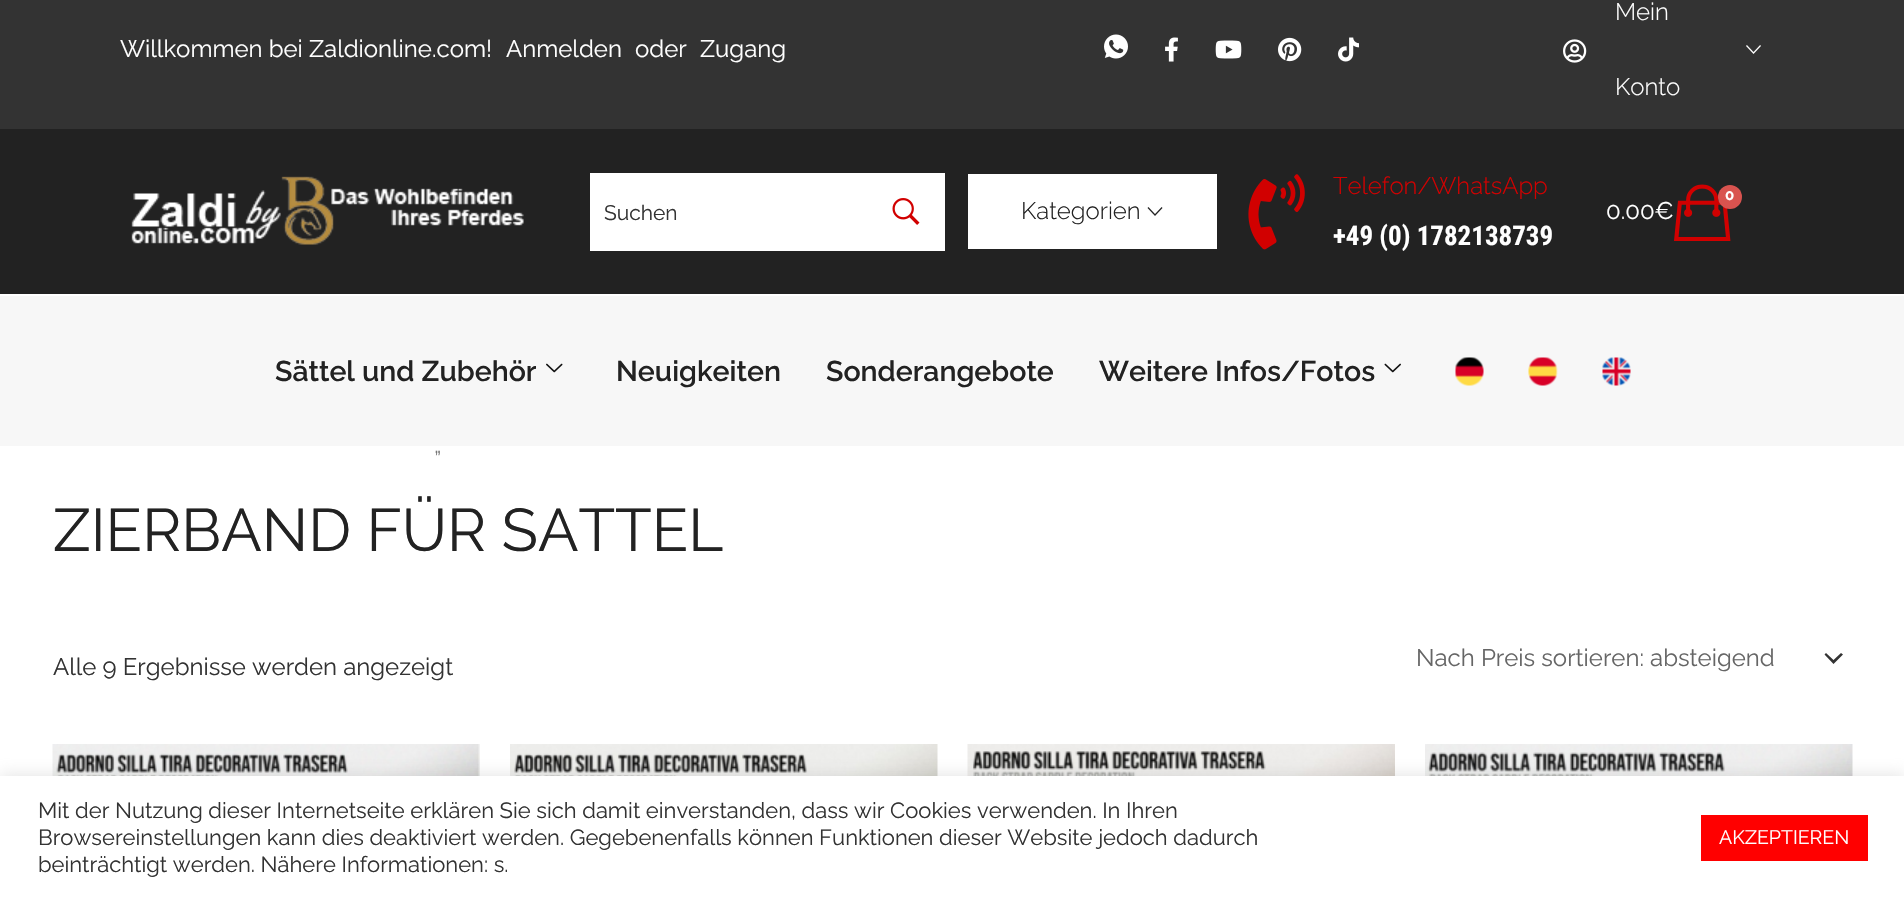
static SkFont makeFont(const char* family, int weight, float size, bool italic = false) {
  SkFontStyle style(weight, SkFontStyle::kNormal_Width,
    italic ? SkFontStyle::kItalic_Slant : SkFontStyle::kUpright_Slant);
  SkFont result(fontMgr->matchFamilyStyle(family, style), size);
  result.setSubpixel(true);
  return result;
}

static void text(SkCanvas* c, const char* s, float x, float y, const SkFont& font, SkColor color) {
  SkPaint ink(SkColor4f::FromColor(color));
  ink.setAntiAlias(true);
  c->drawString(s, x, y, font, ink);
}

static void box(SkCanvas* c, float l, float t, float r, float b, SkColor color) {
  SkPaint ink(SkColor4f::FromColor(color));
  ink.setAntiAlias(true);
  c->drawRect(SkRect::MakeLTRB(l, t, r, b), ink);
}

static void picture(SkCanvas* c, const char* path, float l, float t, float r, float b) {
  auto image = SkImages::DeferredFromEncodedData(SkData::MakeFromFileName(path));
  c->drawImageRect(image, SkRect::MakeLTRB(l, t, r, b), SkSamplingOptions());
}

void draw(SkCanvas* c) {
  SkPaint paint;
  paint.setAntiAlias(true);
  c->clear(0xffffffff);
  box(c, 0, 0, 1904, 129, 0xff333333);
  SkFont face1 = makeFont("Raleway", 400, 24);
  text(c, "Willkommen bei Zaldionline.com!", 120, 57, face1, 0xffffffff);
  text(c, "Anmelden", 506, 57, face1, 0xffffffff);
  text(c, "oder", 635, 57, face1, 0xffffffff);
  text(c, "Zugang", 700, 57, face1, 0xffffffff);
  picture(c, "img_01.png", 1104, 34, 1128, 59);
  picture(c, "img_02.png", 1165, 37, 1178, 62);
  picture(c, "img_03.png", 1215, 40, 1242, 59);
  picture(c, "img_04.png", 1278, 37, 1302, 62);
  picture(c, "img_05.png", 1338, 37, 1359, 62);
  picture(c, "img_06.png", 1563, 39, 1587, 63);
  SkFont face2 = makeFont("Raleway", 300, 24);
  text(c, "Mein", 1615, 20, face2, 0xffffffff);
  picture(c, "img_07.png", 1746, 45, 1761, 54);
  text(c, "Konto", 1615, 95, face2, 0xffffffff);
  box(c, 0, 129, 1904, 294, 0xff222222);
  picture(c, "img_08.png", 131, 176, 524, 245);
  box(c, 590, 173, 945, 251, 0xffffffff);
  SkFont face3 = makeFont("Raleway", 400, 21);
  text(c, "Suchen", 604, 220, face3, 0xff333333);
  picture(c, "img_09.png", 892, 198, 920, 225);
  box(c, 968, 174, 1217, 249, 0xffffffff);
  text(c, "Kategorien", 1021, 219, face2, 0xff222222);
  picture(c, "img_10.png", 1147, 207, 1163, 216);
  picture(c, "img_11.png", 1248, 174, 1305, 250);
  text(c, "Telefon/WhatsApp", 1333, 194, face2, 0xffd10000);
  SkFont face4 = makeFont("Roboto Condensed", 700, 27);
  text(c, "+49 (0) 1782138739", 1333, 245, face4, 0xffffffff);
  picture(c, "img_12.png", 1674, 184, 1731, 241);
  paint.setColor(0xffd9534f);
  c->drawCircle(1730, 197, 12, paint);
  SkFont face5 = makeFont("Raleway", 700, 15);
  text(c, "0", 1725, 200, face5, 0xffffffff);
  text(c, "0.00€", 1606, 219, face1, 0xffffffff);
  box(c, 0, 296, 1904, 446, 0xfff7f7f7);
  SkFont face6 = makeFont("Raleway", 600, 28.5f);
  text(c, "Sättel und Zubehör", 275, 381, face6, 0xff222222);
  picture(c, "img_13.png", 546, 363, 563, 373);
  text(c, "Neuigkeiten", 616, 381, face6, 0xff222222);
  text(c, "Sonderangebote", 826, 381, face6, 0xff222222);
  text(c, "Weitere Infos/Fotos", 1099, 381, face6, 0xff222222);
  picture(c, "img_14.png", 1384, 363, 1401, 373);
  picture(c, "img_15.png", 1455, 357, 1484, 386);
  picture(c, "img_16.png", 1528, 357, 1558, 386);
  picture(c, "img_17.png", 1602, 357, 1631, 386);
  SkFont face7 = makeFont("Raleway", 400, 22);
  text(c, "„", 434, 453, face7, 0xff777777);
  SkFont face8 = makeFont("Raleway", 400, 60);
  text(c, "ZIERBAND FÜR SATTEL", 53, 551, face8, 0xff222222);
  text(c, "Alle 9 Ergebnisse werden angezeigt", 53, 675, face1, 0xff333333);
  paint.setColor(0xff333333);
  c->drawPath(SkPathBuilder().moveTo(1824.5f, 654.5f).lineTo(1833.5f, 664).lineTo(1843, 654.5f).lineTo(1841, 653).lineTo(1833.5f, 660).lineTo(1826, 653).close().detach(), paint);
  text(c, "Nach Preis sortieren: absteigend", 1416, 666, face1, 0xff666666);
  picture(c, "img_18.png", 52, 744, 480, 776);
  picture(c, "img_19.png", 510, 744, 938, 776);
  picture(c, "img_20.png", 967, 744, 1395, 776);
  picture(c, "img_21.png", 1425, 744, 1853, 776);
  paint.setColor(0x4dacabab);
  paint.setMaskFilter(SkMaskFilter::MakeBlur(kNormal_SkBlurStyle, 7.5f));
  c->drawRect(SkRect::MakeLTRB(0, 774, 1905, 897), paint);
  paint.setMaskFilter(nullptr);
  box(c, 0, 776, 1904, 898, 0xffffffff);
  text(c, "Mit der Nutzung dieser Internetseite erklären Sie sich damit einverstanden, dass wir Cookies verwenden. In Ihren", 38, 818, face7, 0xff333333);
  text(c, "Browsereinstellungen kann dies deaktiviert werden. Gegebenenfalls können Funktionen dieser Website jedoch dadurch", 38, 845, face7, 0xff333333);
  text(c, "beinträchtigt werden. Nähere Informationen: s.", 38, 872, face7, 0xff333333);
  box(c, 1701, 815, 1868, 861, 0xffff0000);
  SkFont face9 = makeFont("Raleway", 400, 19.5f);
  text(c, "AKZEPTIEREN", 1719, 844, face9, 0xffffffff);
}
